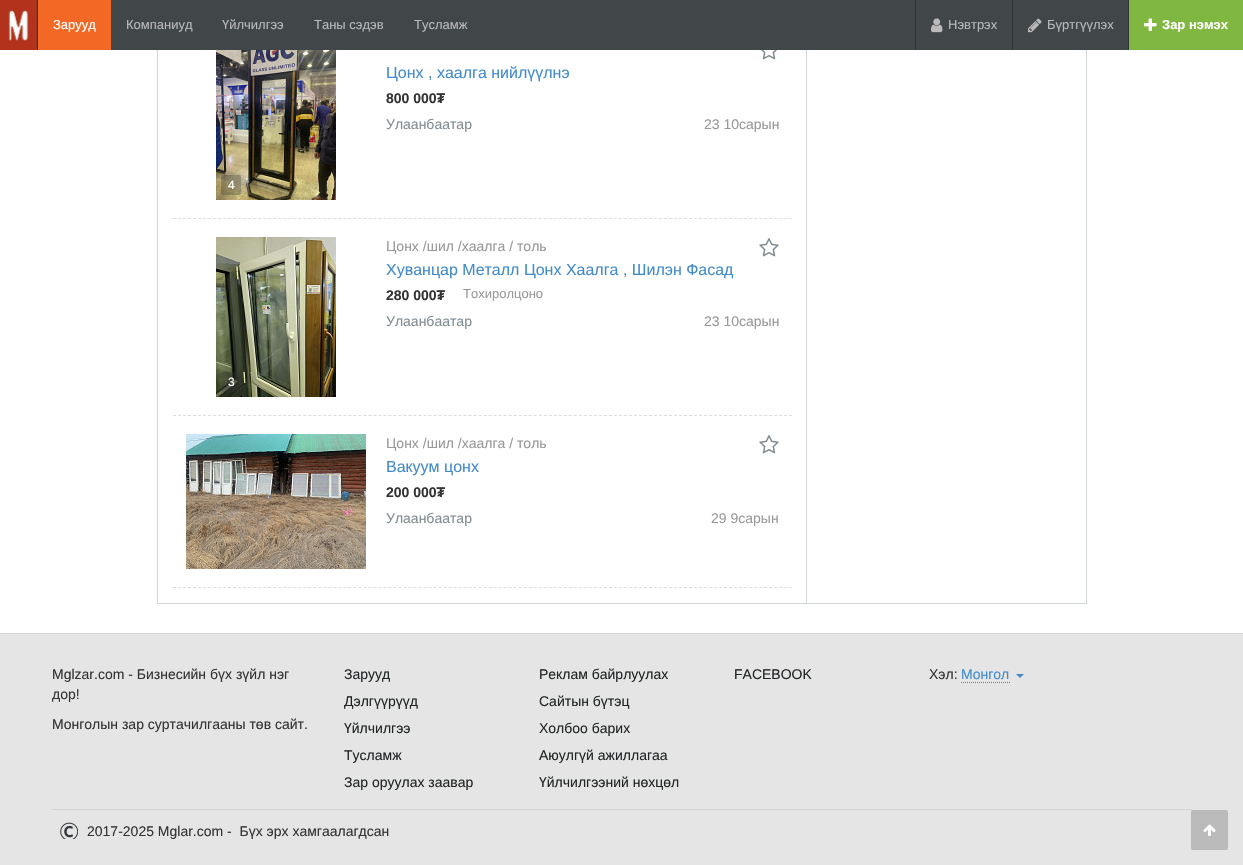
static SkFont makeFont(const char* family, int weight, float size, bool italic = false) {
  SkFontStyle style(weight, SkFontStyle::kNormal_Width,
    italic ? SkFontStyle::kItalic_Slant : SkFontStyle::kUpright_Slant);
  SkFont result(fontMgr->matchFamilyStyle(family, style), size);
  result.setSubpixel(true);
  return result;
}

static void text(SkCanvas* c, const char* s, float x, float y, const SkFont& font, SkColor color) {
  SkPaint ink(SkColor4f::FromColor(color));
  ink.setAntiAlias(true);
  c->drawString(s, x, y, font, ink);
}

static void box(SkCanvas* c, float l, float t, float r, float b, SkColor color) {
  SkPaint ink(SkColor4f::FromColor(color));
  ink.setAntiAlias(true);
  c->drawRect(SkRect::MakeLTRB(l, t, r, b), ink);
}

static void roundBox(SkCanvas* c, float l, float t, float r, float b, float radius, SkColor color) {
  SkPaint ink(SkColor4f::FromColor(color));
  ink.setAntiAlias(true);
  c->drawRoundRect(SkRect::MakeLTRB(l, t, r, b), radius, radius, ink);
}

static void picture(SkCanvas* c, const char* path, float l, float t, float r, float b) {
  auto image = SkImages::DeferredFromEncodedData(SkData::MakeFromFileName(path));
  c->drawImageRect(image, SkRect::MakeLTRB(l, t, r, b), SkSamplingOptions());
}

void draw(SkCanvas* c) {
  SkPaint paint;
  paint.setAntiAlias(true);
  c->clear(0xffffffff);
  paint.setStyle(SkPaint::kStroke_Style);
  paint.setStrokeWidth(1);
  paint.setColor(0xffd0d6d9);
  c->drawRect(SkRect::MakeLTRB(157.5f, -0.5f, 1086.5f, 603.5f), paint);
  box(c, 36, 0, 1128, 50, 0xff414749);
  picture(c, "img_01.png", 0, 0, 37, 50);
  box(c, 37, 0, 38, 50, 0xff303536);
  box(c, 38, 0, 111, 50, 0xfff26824);
  SkFont face1 = makeFont("Liberation Sans", 400, 13);
  text(c, "Зарууд", 53, 29, face1, 0xffffffff);
  text(c, "Компаниуд", 126, 29, face1, 0xffbababa);
  text(c, "Үйлчилгээ", 222, 29, face1, 0xffbababa);
  text(c, "Таны сэдэв", 314, 29, face1, 0xffbababa);
  text(c, "Тусламж", 414, 29, face1, 0xffbababa);
  box(c, 915, 0, 916, 50, 0xff303536);
  picture(c, "img_02.png", 931, 18, 943, 33);
  text(c, "Нэвтрэх", 948, 29, face1, 0xffbababa);
  box(c, 1012, 0, 1013, 50, 0xff303536);
  picture(c, "img_03.png", 1028, 18, 1042, 33);
  text(c, "Бүртгүүлэх", 1047, 29, face1, 0xffbababa);
  box(c, 1129, 0, 1243, 50, 0xff80b740);
  box(c, 1128, 0, 1129, 50, 0xff303536);
  picture(c, "img_04.png", 1144, 18, 1157, 31);
  SkFont face2 = makeFont("Liberation Sans", 700, 13);
  text(c, "Зар нэмэх", 1162, 29, face2, 0xffffffff);
  picture(c, "img_05.png", 761, 50, 777, 60);
  SkFont face3 = makeFont("Liberation Sans", 400, 16);
  text(c, "Цонх , хаалга нийлүүлнэ", 386, 78, face3, 0xff428bca);
  SkFont face4 = makeFont("Liberation Sans", 700, 14);
  text(c, "800 000₮", 386, 103, face4, 0xff333333);
  SkFont face5 = makeFont("Liberation Sans", 400, 14);
  text(c, "Улаанбаатар", 386, 129, face5, 0xff828c93);
  text(c, "23 10сарын", 704, 129, face5, 0xff999999);
  picture(c, "img_06.png", 216, 50, 336, 200);
  roundBox(c, 221, 175, 241, 195, 2, 0x4d333333);
  SkFont face6 = makeFont("Liberation Sans", 400, 12);
  text(c, "4", 228, 189, face6, 0xffffffff);
  paint.setColor(0xffdddddd);
  paint.setPathEffect(SkDashPathEffect::Make({{3, 2.01f}}, 0));
  c->drawPath(SkPathBuilder().moveTo(173, 218.5f).lineTo(792, 218.5f).detach(), paint);
  paint.setPathEffect(nullptr);
  picture(c, "img_07.png", 759, 238, 779, 257);
  text(c, "Цонх /шил /хаалга / толь", 386, 251, face5, 0xff999999);
  text(c, "Хуванцар Металл Цонх Хаалга , Шилэн Фасад", 386, 275, face3, 0xff428bca);
  text(c, "280 000₮", 386, 300, face4, 0xff333333);
  text(c, "Тохиролцоно", 463, 298, face1, 0xff999999);
  text(c, "Улаанбаатар", 386, 326, face5, 0xff828c93);
  text(c, "23 10сарын", 704, 326, face5, 0xff999999);
  picture(c, "img_08.png", 216, 237, 336, 397);
  roundBox(c, 221, 372, 241, 392, 2, 0x4d333333);
  text(c, "3", 228, 386, face6, 0xffffffff);
  paint.setPathEffect(SkDashPathEffect::Make({{3, 2.01f}}, 0));
  c->drawPath(SkPathBuilder().moveTo(173, 415.5f).lineTo(792, 415.5f).detach(), paint);
  paint.setPathEffect(nullptr);
  picture(c, "img_09.png", 186, 434, 366, 569);
  picture(c, "img_07.png", 759, 435, 779, 454);
  text(c, "Цонх /шил /хаалга / толь", 386, 448, face5, 0xff999999);
  text(c, "Вакуум цонх", 386, 472, face3, 0xff428bca);
  text(c, "200 000₮", 386, 497, face4, 0xff333333);
  text(c, "Улаанбаатар", 386, 523, face5, 0xff828c93);
  text(c, "29 9сарын", 711, 523, face5, 0xff999999);
  paint.setPathEffect(SkDashPathEffect::Make({{3, 2.01f}}, 0));
  c->drawPath(SkPathBuilder().moveTo(173, 587.5f).lineTo(792, 587.5f).detach(), paint);
  paint.setPathEffect(nullptr);
  box(c, 806, 50, 807, 603, 0xffd0d6d9);
  box(c, 0, 634, 1243, 865, 0xffe5e5e5);
  box(c, 0, 633, 1243, 634, 0xffd0d6d9);
  text(c, "Mglzar.com - Бизнесийн бүх зүйл нэг", 52, 679, face5, 0xff333333);
  text(c, "дор!", 52, 699, face5, 0xff333333);
  text(c, "Монголын зар суртачилгааны төв сайт.", 52, 729, face5, 0xff333333);
  text(c, "Зарууд", 344, 679, face5, 0xff212526);
  text(c, "Дэлгүүрүүд", 344, 706, face5, 0xff212526);
  text(c, "Үйлчилгээ", 344, 733, face5, 0xff212526);
  text(c, "Тусламж", 344, 760, face5, 0xff212526);
  text(c, "Зар оруулах заавар", 344, 787, face5, 0xff212526);
  text(c, "Реклам байрлуулах", 539, 679, face5, 0xff212526);
  text(c, "Сайтын бүтэц", 539, 706, face5, 0xff212526);
  text(c, "Холбоо барих", 539, 733, face5, 0xff212526);
  text(c, "Аюулгүй ажиллагаа", 539, 760, face5, 0xff212526);
  text(c, "Үйлчилгээний нөхцөл", 539, 787, face5, 0xff212526);
  text(c, "FACEBOOK", 734, 679, face5, 0xff212526);
  text(c, "Хэл:", 929, 679, face5, 0xff333333);
  text(c, "Монгол", 961, 679, face5, 0xff428bca);
  paint.setColor(0xff428bca);
  paint.setPathEffect(SkDashPathEffect::Make({{1, 1}}, 0));
  c->drawPath(SkPathBuilder().moveTo(961, 682.5f).lineTo(1010, 682.5f).detach(), paint);
  paint.setPathEffect(nullptr);
  paint.setStyle(SkPaint::kFill_Style);
  c->drawPath(SkPathBuilder().moveTo(1016, 674).lineTo(1024, 674).lineTo(1020, 678).close().detach(), paint);
  box(c, 52, 809, 1192, 810, 0xffd0d6d9);
  picture(c, "img_10.png", 60, 822, 78, 839);
  text(c, "2017-2025 Mglar.com -  Бүх эрх хамгаалагдсан", 87, 836, face5, 0xff333333);
  roundBox(c, 1191, 810, 1228, 850, 2, 0xffbababa);
  picture(c, "img_11.png", 1203, 824, 1216, 836);
}
